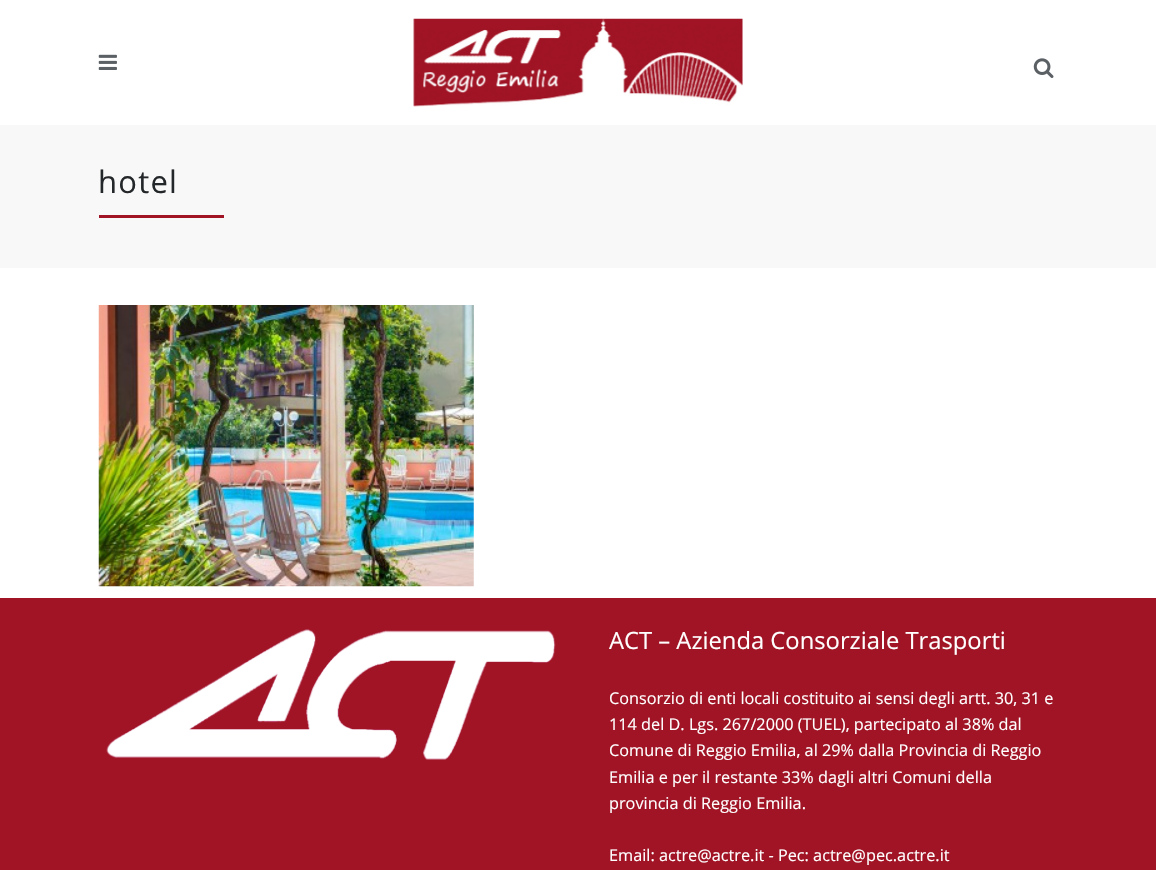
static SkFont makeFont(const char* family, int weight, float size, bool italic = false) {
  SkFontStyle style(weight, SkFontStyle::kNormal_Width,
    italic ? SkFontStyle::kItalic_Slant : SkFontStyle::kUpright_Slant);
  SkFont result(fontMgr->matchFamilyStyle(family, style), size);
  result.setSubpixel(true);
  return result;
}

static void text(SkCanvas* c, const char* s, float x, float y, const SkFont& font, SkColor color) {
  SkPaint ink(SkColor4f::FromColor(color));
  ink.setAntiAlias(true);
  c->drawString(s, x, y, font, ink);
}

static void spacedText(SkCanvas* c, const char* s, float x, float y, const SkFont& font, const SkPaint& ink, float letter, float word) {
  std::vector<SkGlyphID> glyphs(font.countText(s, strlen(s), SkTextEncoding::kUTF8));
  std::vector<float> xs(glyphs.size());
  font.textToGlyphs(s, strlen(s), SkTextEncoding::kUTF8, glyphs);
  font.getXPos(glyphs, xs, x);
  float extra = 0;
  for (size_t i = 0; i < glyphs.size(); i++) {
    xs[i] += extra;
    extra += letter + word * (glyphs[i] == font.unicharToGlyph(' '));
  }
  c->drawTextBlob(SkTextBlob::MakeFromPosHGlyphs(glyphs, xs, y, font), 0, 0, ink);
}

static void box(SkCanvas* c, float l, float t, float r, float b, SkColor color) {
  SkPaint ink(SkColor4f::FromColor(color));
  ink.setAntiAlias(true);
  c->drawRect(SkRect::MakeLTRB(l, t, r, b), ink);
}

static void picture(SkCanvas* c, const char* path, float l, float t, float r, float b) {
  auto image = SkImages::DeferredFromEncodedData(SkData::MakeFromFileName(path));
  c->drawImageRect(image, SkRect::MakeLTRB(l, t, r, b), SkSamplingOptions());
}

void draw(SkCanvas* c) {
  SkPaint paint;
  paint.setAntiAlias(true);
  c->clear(0xffffffff);
  picture(c, "img_01.png", 98, 54, 117, 70);
  picture(c, "img_02.png", 413, 18, 743, 107);
  picture(c, "img_03.png", 1033, 58, 1054, 78);
  box(c, 0, 125, 1156, 268, 0xfff8f8f8);
  SkFont face1 = makeFont("Open Sans", 400, 31);
  paint.setColor(0xff242729);
  spacedText(c, "hotel", 98, 193, face1, paint, 1.25f, 0);
  box(c, 99, 215, 224, 218, 0xffa01425);
  picture(c, "img_04.png", 98, 305, 474, 587);
  box(c, 0, 598, 1156, 870, 0xffa01425);
  picture(c, "img_05.png", 106, 629, 556, 760);
  SkFont face2 = makeFont("Open Sans", 400, 23.75f);
  text(c, "ACT – Azienda Consorziale Trasporti", 609, 649, face2, 0xffffffff);
  SkFont face3 = makeFont("Open Sans", 400, 16.25f);
  text(c, "Consorzio di enti locali costituito ai sensi degli artt. 30, 31 e", 609, 704, face3, 0xffffffff);
  text(c, "114 del D. Lgs. 267/2000 (TUEL), partecipato al 38% dal", 609, 730, face3, 0xffffffff);
  text(c, "Comune di Reggio Emilia, al 29% dalla Provincia di Reggio", 609, 756, face3, 0xffffffff);
  text(c, "Emilia e per il restante 33% dagli altri Comuni della", 609, 783, face3, 0xffffffff);
  text(c, "provincia di Reggio Emilia.", 609, 809, face3, 0xffffffff);
  text(c, "Email: actre@actre.it - Pec: actre@pec.actre.it", 609, 861, face3, 0xffffffff);
}
